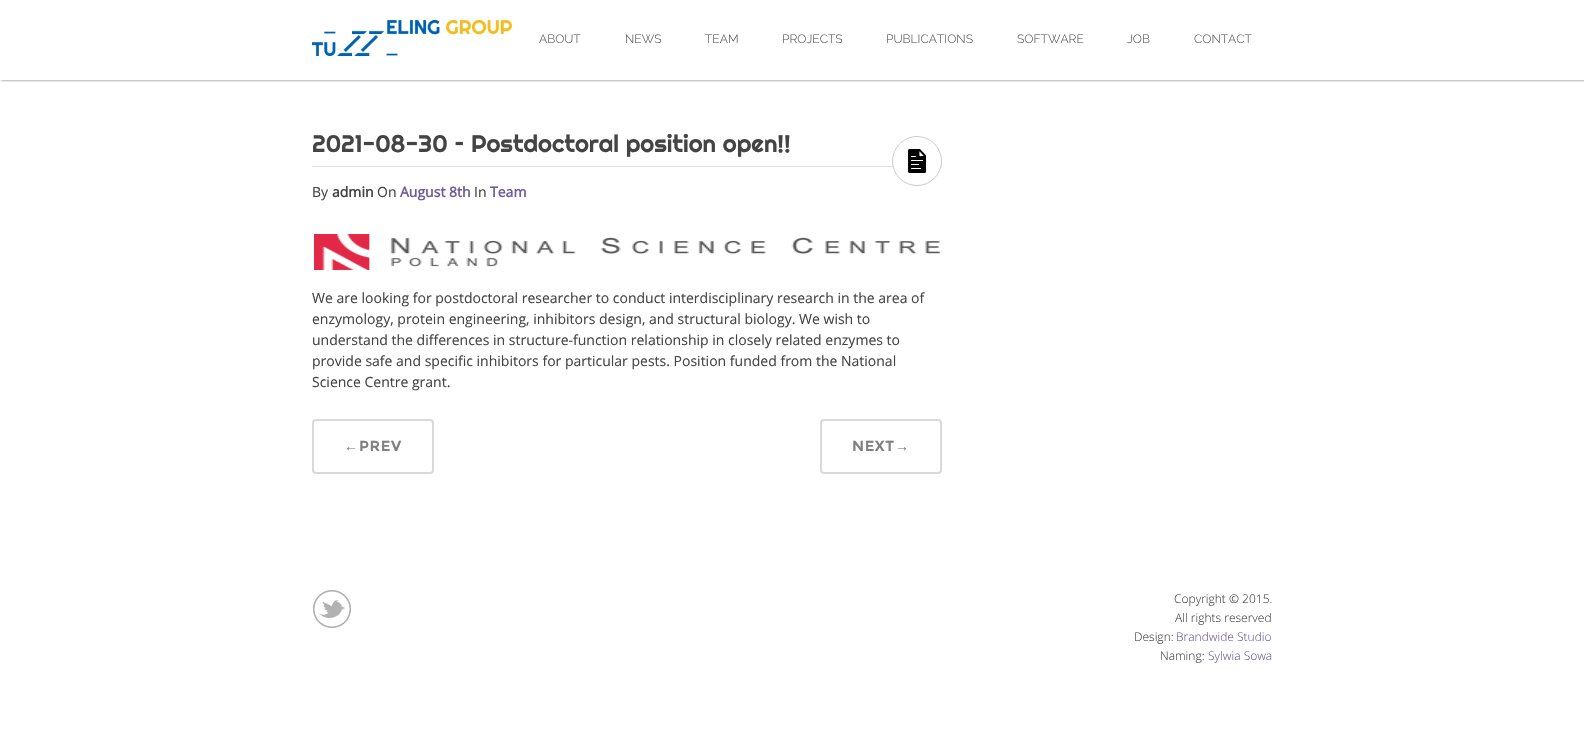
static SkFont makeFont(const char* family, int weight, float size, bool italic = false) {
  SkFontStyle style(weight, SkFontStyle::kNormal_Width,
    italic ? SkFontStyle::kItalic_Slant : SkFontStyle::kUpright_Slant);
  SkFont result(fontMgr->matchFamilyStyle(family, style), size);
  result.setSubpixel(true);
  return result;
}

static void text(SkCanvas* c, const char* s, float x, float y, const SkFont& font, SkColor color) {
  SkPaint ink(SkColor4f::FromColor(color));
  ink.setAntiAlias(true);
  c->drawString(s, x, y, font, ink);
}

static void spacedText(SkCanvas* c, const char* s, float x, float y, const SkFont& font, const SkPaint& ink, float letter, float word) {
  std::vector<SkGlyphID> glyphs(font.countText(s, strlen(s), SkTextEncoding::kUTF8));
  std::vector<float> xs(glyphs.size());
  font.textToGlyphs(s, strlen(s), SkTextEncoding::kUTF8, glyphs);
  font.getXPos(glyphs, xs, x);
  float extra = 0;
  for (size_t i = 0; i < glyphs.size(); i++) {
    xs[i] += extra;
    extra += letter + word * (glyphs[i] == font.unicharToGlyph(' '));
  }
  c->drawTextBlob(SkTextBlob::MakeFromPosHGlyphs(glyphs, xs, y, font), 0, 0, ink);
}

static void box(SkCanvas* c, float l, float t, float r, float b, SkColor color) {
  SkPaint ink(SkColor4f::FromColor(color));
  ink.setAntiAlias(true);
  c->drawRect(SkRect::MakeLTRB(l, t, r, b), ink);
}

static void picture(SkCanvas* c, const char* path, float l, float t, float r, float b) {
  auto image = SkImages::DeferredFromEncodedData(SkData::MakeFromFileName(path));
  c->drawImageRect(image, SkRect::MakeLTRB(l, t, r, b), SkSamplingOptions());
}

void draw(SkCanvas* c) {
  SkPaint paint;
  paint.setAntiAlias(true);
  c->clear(0xffffffff);
  c->save();
  c->clipRect(SkRect::MakeLTRB(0, 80, 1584, 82));
  paint.setColor(0x4d000000);
  paint.setMaskFilter(SkMaskFilter::MakeBlur(kNormal_SkBlurStyle, 1));
  c->drawRect(SkRect::MakeLTRB(1, 1, 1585, 81), paint);
  paint.setMaskFilter(nullptr);
  c->restore();
  picture(c, "img_01.png", 312, 20, 512, 56);
  SkFont face1 = makeFont("Raleway", 300, 12);
  text(c, "ABOUT", 539, 43, face1, 0xff555555);
  text(c, "NEWS", 625, 43, face1, 0xff555555);
  text(c, "TEAM", 705, 43, face1, 0xff555555);
  text(c, "PROJECTS", 782, 43, face1, 0xff555555);
  text(c, "PUBLICATIONS", 886, 43, face1, 0xff555555);
  text(c, "SOFTWARE", 1017, 43, face1, 0xff555555);
  text(c, "JOB", 1127, 43, face1, 0xff555555);
  text(c, "CONTACT", 1194, 43, face1, 0xff555555);
  SkFont face2 = makeFont("Righteous", 400, 24);
  text(c, "2021-08-30 – Postdoctoral position open!!", 312, 152, face2, 0xff444444);
  box(c, 312, 166, 942, 167, 0xffdfdfdf);
  paint.setColor(0xffffffff);
  c->drawCircle(917, 161, 24.5f, paint);
  paint.setStyle(SkPaint::kStroke_Style);
  paint.setStrokeWidth(1);
  paint.setColor(0xffcccccc);
  c->drawCircle(917, 161, 24.5f, paint);
  picture(c, "img_02.png", 908, 149, 927, 173);
  SkFont face3 = makeFont("Open Sans", 400, 14);
  text(c, "By", 312, 197, face3, 0xff444444);
  SkFont face4 = makeFont("Open Sans", 700, 14);
  text(c, "admin", 332, 197, face4, 0xff444444);
  text(c, "On", 377, 197, face3, 0xff444444);
  text(c, "August 8th", 400, 197, face4, 0xff6d5b9d);
  text(c, "In", 474, 197, face3, 0xff444444);
  text(c, "Team", 490, 197, face4, 0xff6d5b9d);
  picture(c, "img_03.png", 314, 234, 940, 270);
  text(c, "We are looking for postdoctoral researcher to conduct interdisciplinary research in the area of", 312, 303, face3, 0xff444444);
  text(c, "enzymology, protein engineering, inhibitors design, and structural biology. We wish to", 312, 324, face3, 0xff444444);
  text(c, "understand the differences in structure-function relationship in closely related enzymes to", 312, 345, face3, 0xff444444);
  text(c, "provide safe and specific inhibitors for particular pests. Position funded from the National", 312, 366, face3, 0xff444444);
  text(c, "Science Centre grant.", 312, 387, face3, 0xff444444);
  paint.setStrokeWidth(2);
  paint.setColor(0xffd9d9d9);
  c->drawRoundRect(SkRect::MakeLTRB(313, 420, 433, 473), 3, 3, paint);
  SkFont face5 = makeFont("Liberation Serif", 700, 14);
  paint.setStyle(SkPaint::kFill_Style);
  paint.setColor(0xff808080);
  spacedText(c, "←", 344, 451, face5, paint, 1, 0);
  SkFont face6 = makeFont("Montserrat", 700, 14);
  spacedText(c, "PREV", 359, 451, face6, paint, 1, 0);
  paint.setStyle(SkPaint::kStroke_Style);
  paint.setColor(0xffd9d9d9);
  c->drawRoundRect(SkRect::MakeLTRB(821, 420, 941, 473), 3, 3, paint);
  paint.setStyle(SkPaint::kFill_Style);
  paint.setColor(0xff808080);
  spacedText(c, "NEXT", 852, 451, face6, paint, 1, 0);
  spacedText(c, "→", 895, 451, face5, paint, 1, 0);
  picture(c, "img_04.png", 313, 590, 351, 628);
  SkFont face7 = makeFont("Open Sans", 300, 12);
  text(c, "Copyright © 2015.", 1174, 603, face7, 0xff444444);
  text(c, "All rights reserved", 1175, 622, face7, 0xff444444);
  text(c, "Design:", 1134, 641, face7, 0xff444444);
  text(c, "Brandwide Studio", 1176, 641, face7, 0xff6d5b9d);
  text(c, "Naming:", 1160, 660, face7, 0xff444444);
  text(c, "Sylwia Sowa", 1208, 660, face7, 0xff6d5b9d);
}
